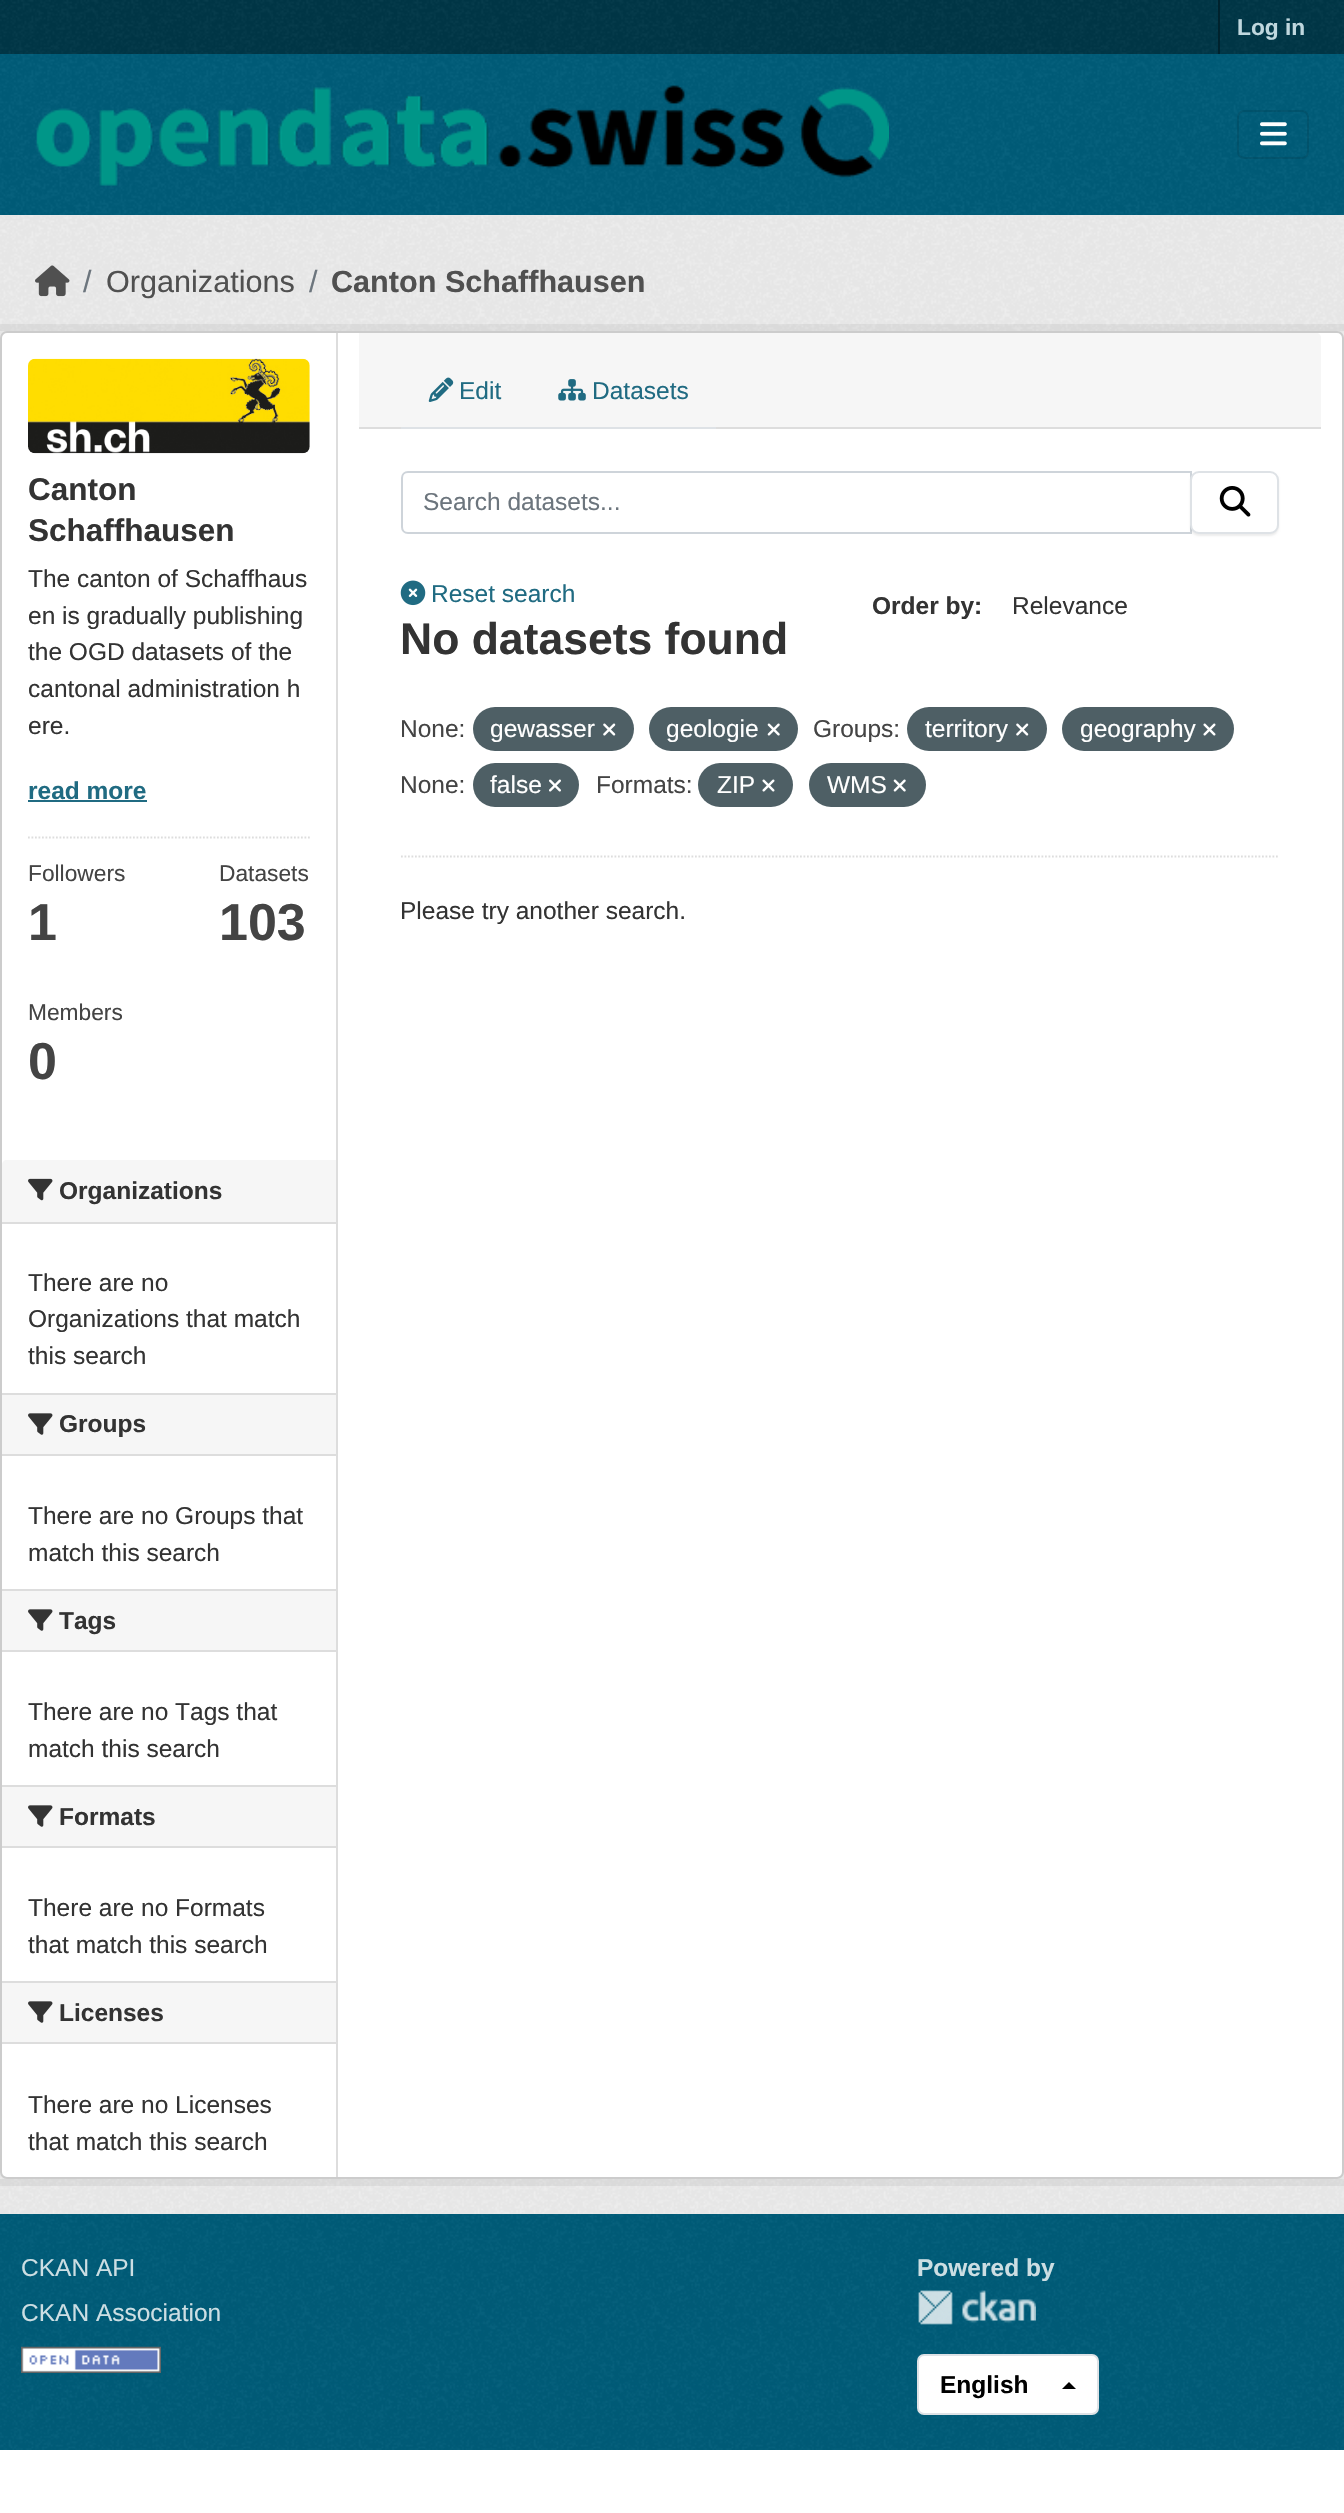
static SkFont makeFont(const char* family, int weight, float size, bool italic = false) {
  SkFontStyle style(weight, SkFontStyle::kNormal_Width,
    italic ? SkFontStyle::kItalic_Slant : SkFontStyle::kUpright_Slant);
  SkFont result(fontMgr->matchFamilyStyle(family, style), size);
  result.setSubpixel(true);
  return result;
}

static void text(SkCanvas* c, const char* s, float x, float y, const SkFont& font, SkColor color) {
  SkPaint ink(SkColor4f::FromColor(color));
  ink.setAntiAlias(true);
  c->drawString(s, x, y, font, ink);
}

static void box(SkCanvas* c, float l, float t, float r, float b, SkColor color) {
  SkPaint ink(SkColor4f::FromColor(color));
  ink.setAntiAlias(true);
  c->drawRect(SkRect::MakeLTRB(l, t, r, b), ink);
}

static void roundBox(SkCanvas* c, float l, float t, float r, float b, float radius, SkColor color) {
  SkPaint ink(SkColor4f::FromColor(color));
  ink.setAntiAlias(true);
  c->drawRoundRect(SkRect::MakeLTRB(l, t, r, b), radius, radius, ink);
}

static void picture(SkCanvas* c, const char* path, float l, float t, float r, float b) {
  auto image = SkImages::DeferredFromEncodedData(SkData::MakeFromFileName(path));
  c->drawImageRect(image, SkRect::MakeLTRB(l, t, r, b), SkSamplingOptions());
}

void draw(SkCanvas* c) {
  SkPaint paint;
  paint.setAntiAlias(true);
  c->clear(0xffffffff);
  box(c, 0, 0, 1344, 54, 0xff003647);
  picture(c, "img_01.png", 0, 0, 1344, 54);
  box(c, 1218, 0, 1220, 54, 0xff00232e);
  SkFont face1 = makeFont("Liberation Sans", 700, 22.75f);
  text(c, "Log in", 1237, 35, face1, 0xffbfd7de);
  box(c, 0, 54, 1344, 215, 0xff005d7a);
  picture(c, "img_02.png", 0, 54, 1344, 215);
  picture(c, "img_03.png", 36, 85, 889, 186);
  paint.setStyle(SkPaint::kStroke_Style);
  paint.setStrokeWidth(2);
  paint.setColor(0x1a000000);
  c->drawRoundRect(SkRect::MakeLTRB(1238, 111, 1308, 158), 6, 6, paint);
  picture(c, "img_04.png", 1260, 122, 1287, 146);
  box(c, 0, 215, 1344, 2214, 0xffeeeeee);
  picture(c, "img_05.png", 0, 215, 1344, 2214);
  picture(c, "img_06.png", 35, 265, 70, 297);
  SkFont face2 = makeFont("Liberation Sans", 400, 30.6f);
  text(c, "/", 83, 292, face2, 0xff6c757d);
  text(c, "Organizations", 106, 292, face2, 0xff505050);
  text(c, "/", 309, 292, face2, 0xff6c757d);
  SkFont face3 = makeFont("Liberation Sans", 700, 30.6f);
  text(c, "Canton Schaffhausen", 331, 292, face3, 0xff505050);
  paint.setStrokeWidth(7);
  paint.setColor(0x0d000000);
  c->drawRect(SkRect::MakeLTRB(-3.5f, 327.5f, 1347.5f, 2182.5f), paint);
  paint.setStyle(SkPaint::kFill_Style);
  paint.setColor(0xffffffff);
  c->drawRoundRect(SkRect::MakeLTRB(1, 332, 1343, 2178), 6, 6, paint);
  paint.setStyle(SkPaint::kStroke_Style);
  paint.setStrokeWidth(2);
  paint.setColor(0xffcccccc);
  c->drawRoundRect(SkRect::MakeLTRB(1, 332, 1343, 2178), 6, 6, paint);
  picture(c, "img_07.png", 28, 358, 310, 454);
  SkFont face4 = makeFont("Liberation Sans", 700, 31.5f);
  text(c, "Canton", 28, 500, face4, 0xff333333);
  text(c, "Schaffhausen", 28, 541, face4, 0xff333333);
  SkFont face5 = makeFont("Liberation Sans", 400, 24.5f);
  text(c, "The canton of Schaffhaus", 28, 587, face5, 0xff333333);
  text(c, "en is gradually publishing", 28, 624, face5, 0xff333333);
  text(c, "the OGD datasets of the", 28, 660, face5, 0xff333333);
  text(c, "cantonal administration h", 28, 697, face5, 0xff333333);
  text(c, "ere.", 28, 734, face5, 0xff333333);
  SkFont face6 = makeFont("Liberation Sans", 700, 24.5f);
  text(c, "read more", 28, 799, face6, 0xff206b82);
  box(c, 28, 800, 147, 802, 0xff206b82);
  paint.setStrokeWidth(1.8f);
  paint.setColor(0xffdddddd);
  paint.setPathEffect(SkDashPathEffect::Make({{1.75f, 1.75f}}, 0));
  c->drawPath(SkPathBuilder().moveTo(28, 837.5f).lineTo(310, 837.5f).detach(), paint);
  paint.setPathEffect(nullptr);
  SkFont face7 = makeFont("Liberation Sans", 400, 22.75f);
  text(c, "Followers", 28, 881, face7, 0xff444444);
  SkFont face8 = makeFont("Liberation Sans", 700, 52);
  text(c, "1", 28, 940, face8, 0xff444444);
  text(c, "Datasets", 219, 881, face7, 0xff444444);
  text(c, "103", 219, 940, face8, 0xff444444);
  text(c, "Members", 28, 1020, face7, 0xff444444);
  text(c, "0", 28, 1079, face8, 0xff444444);
  paint.setStyle(SkPaint::kFill_Style);
  paint.setColor(0xfff6f6f6);
  c->drawPath(SkPathBuilder().moveTo(7, 1160).lineTo(336, 1160).lineTo(336, 1223).lineTo(2, 1223).lineTo(2, 1165).cubicTo(2, 1162, 4, 1160, 7, 1160).close().detach(), paint);
  box(c, 2, 1222, 336, 1224, 0xffdddddd);
  picture(c, "img_08.png", 28, 1178, 53, 1201);
  text(c, "Organizations", 59, 1199, face6, 0xff333333);
  text(c, "There are no", 28, 1291, face5, 0xff333333);
  text(c, "Organizations that match", 28, 1327, face5, 0xff333333);
  text(c, "this search", 28, 1364, face5, 0xff333333);
  box(c, 2, 1395, 336, 1454, 0xfff6f6f6);
  box(c, 2, 1393, 336, 1395, 0xffdddddd);
  box(c, 2, 1454, 336, 1456, 0xffdddddd);
  picture(c, "img_09.png", 28, 1413, 53, 1435);
  text(c, "Groups", 59, 1432, face6, 0xff333333);
  text(c, "There are no Groups that", 28, 1524, face5, 0xff333333);
  text(c, "match this search", 28, 1561, face5, 0xff333333);
  box(c, 2, 1591, 336, 1650, 0xfff6f6f6);
  box(c, 2, 1589, 336, 1591, 0xffdddddd);
  box(c, 2, 1650, 336, 1652, 0xffdddddd);
  picture(c, "img_09.png", 28, 1609, 53, 1631);
  text(c, "Tags", 59, 1629, face6, 0xff333333);
  text(c, "There are no Tags that", 28, 1720, face5, 0xff333333);
  text(c, "match this search", 28, 1757, face5, 0xff333333);
  box(c, 2, 1787, 336, 1846, 0xfff6f6f6);
  box(c, 2, 1785, 336, 1787, 0xffdddddd);
  box(c, 2, 1846, 336, 1848, 0xffdddddd);
  picture(c, "img_09.png", 28, 1805, 53, 1827);
  text(c, "Formats", 59, 1825, face6, 0xff333333);
  text(c, "There are no Formats", 28, 1916, face5, 0xff333333);
  text(c, "that match this search", 28, 1953, face5, 0xff333333);
  box(c, 2, 1983, 336, 2042, 0xfff6f6f6);
  box(c, 2, 1981, 336, 1983, 0xffdddddd);
  box(c, 2, 2042, 336, 2044, 0xffdddddd);
  picture(c, "img_09.png", 28, 2001, 53, 2023);
  text(c, "Licenses", 59, 2021, face6, 0xff333333);
  text(c, "There are no Licenses", 28, 2113, face5, 0xff333333);
  text(c, "that match this search", 28, 2150, face5, 0xff333333);
  box(c, 336, 333, 338, 2177, 0xffdddddd);
  c->drawPath(SkPathBuilder().moveTo(359, 333).lineTo(1316, 333).cubicTo(1319, 333, 1321, 335, 1321, 338).lineTo(1321, 429).lineTo(359, 429).close().detach(), paint);
  box(c, 359, 427, 1321, 429, 0xffdddddd);
  box(c, 401, 427, 716, 429, 0xffdee2e6);
  picture(c, "img_10.png", 428, 377, 454, 402);
  text(c, "Edit", 459, 399, face5, 0xff206b82);
  picture(c, "img_11.png", 558, 379, 586, 401);
  text(c, "Datasets", 592, 399, face5, 0xff206b82);
  paint.setStyle(SkPaint::kStroke_Style);
  paint.setColor(0xffdddddd);
  paint.setPathEffect(SkDashPathEffect::Make({{1.75f, 1.75f}}, 0));
  c->drawPath(SkPathBuilder().moveTo(401, 856.5f).lineTo(1279, 856.5f).detach(), paint);
  paint.setPathEffect(nullptr);
  paint.setStrokeWidth(2);
  paint.setColor(0xffced4da);
  c->drawPath(SkPathBuilder().moveTo(408, 472).lineTo(1191, 472).lineTo(1191, 533).lineTo(408, 533).cubicTo(404.5f, 533, 402, 530.5f, 402, 527).lineTo(402, 478).cubicTo(402, 474.5f, 404.5f, 472, 408, 472).close().detach(), paint);
  text(c, "Search datasets...", 423, 510, face5, 0xff6c757d);
  paint.setStyle(SkPaint::kFill_Style);
  paint.setColor(0x12000000);
  paint.setMaskFilter(SkMaskFilter::MakeBlur(kNormal_SkBlurStyle, 1));
  c->drawRoundRect(SkRect::MakeLTRB(1190, 473, 1279, 536), 9, 9, paint);
  paint.setMaskFilter(nullptr);
  paint.setColor(0xffffffff);
  c->drawRoundRect(SkRect::MakeLTRB(1191, 472, 1278, 533), 8, 8, paint);
  paint.setStyle(SkPaint::kStroke_Style);
  paint.setColor(0xffdee2e6);
  c->drawRoundRect(SkRect::MakeLTRB(1191, 472, 1278, 533), 8, 8, paint);
  picture(c, "img_12.png", 1219, 486, 1251, 517);
  picture(c, "img_13.png", 400, 580, 426, 606);
  text(c, "Reset search", 431, 602, face5, 0xff206b82);
  text(c, "Order by:", 872, 614, face6, 0xff333333);
  text(c, "Relevance", 1012, 614, face5, 0xff333333);
  SkFont face9 = makeFont("Liberation Sans", 700, 44.5f);
  text(c, "No datasets found", 400, 654, face9, 0xff333333);
  text(c, "None:", 400, 737, face5, 0xff444444);
  roundBox(c, 473, 707, 634, 751, 22, 0xff4e5f65);
  text(c, "gewasser", 490, 737, face5, 0xffffffff);
  picture(c, "img_14.png", 603, 723, 616, 736);
  roundBox(c, 649, 707, 798, 751, 22, 0xff4e5f65);
  text(c, "geologie", 666, 737, face5, 0xffffffff);
  picture(c, "img_15.png", 767, 723, 780, 736);
  text(c, "Groups:", 813, 737, face5, 0xff444444);
  roundBox(c, 907, 707, 1047, 751, 22, 0xff4e5f65);
  text(c, "territory", 925, 737, face5, 0xffffffff);
  picture(c, "img_14.png", 1016, 723, 1029, 736);
  roundBox(c, 1062, 707, 1234, 751, 22, 0xff4e5f65);
  text(c, "geography", 1080, 737, face5, 0xffffffff);
  picture(c, "img_16.png", 1203, 723, 1216, 736);
  text(c, "None:", 400, 793, face5, 0xff444444);
  roundBox(c, 473, 763, 579, 807, 22, 0xff4e5f65);
  text(c, "false", 490, 793, face5, 0xffffffff);
  picture(c, "img_17.png", 549, 779, 561, 792);
  text(c, "Formats:", 596, 793, face5, 0xff444444);
  roundBox(c, 698, 763, 793, 807, 22, 0xff4e5f65);
  text(c, "ZIP", 717, 793, face5, 0xffffffff);
  picture(c, "img_16.png", 762, 779, 775, 792);
  roundBox(c, 809, 763, 926, 807, 22, 0xff4e5f65);
  text(c, "WMS", 827, 793, face5, 0xffffffff);
  picture(c, "img_15.png", 893, 779, 906, 792);
  text(c, "Please try another search.", 400, 919, face5, 0xff333333);
  box(c, 0, 2214, 1344, 2450, 0xff005d7a);
  picture(c, "img_18.png", 0, 2214, 1344, 2450);
  text(c, "CKAN API", 21, 2276, face5, 0xffccdee3);
  text(c, "CKAN Association", 21, 2321, face5, 0xffccdee3);
  picture(c, "img_19.png", 21, 2346, 161, 2373);
  text(c, "Powered by", 917, 2276, face6, 0xffccdee3);
  picture(c, "img_20.png", 918, 2290, 1036, 2325);
  paint.setStyle(SkPaint::kFill_Style);
  paint.setColor(0xffffffff);
  c->drawRoundRect(SkRect::MakeLTRB(918, 2355, 1098, 2414), 6, 6, paint);
  paint.setStyle(SkPaint::kStroke_Style);
  paint.setColor(0xffdee2e6);
  c->drawRoundRect(SkRect::MakeLTRB(918, 2355, 1098, 2414), 6, 6, paint);
  text(c, "English", 940, 2393, face6, 0xff000000);
  paint.setStyle(SkPaint::kFill_Style);
  paint.setColor(0xff000000);
  c->drawPath(SkPathBuilder().moveTo(1076, 2389).lineTo(1062, 2389).lineTo(1069, 2382).close().detach(), paint);
}
